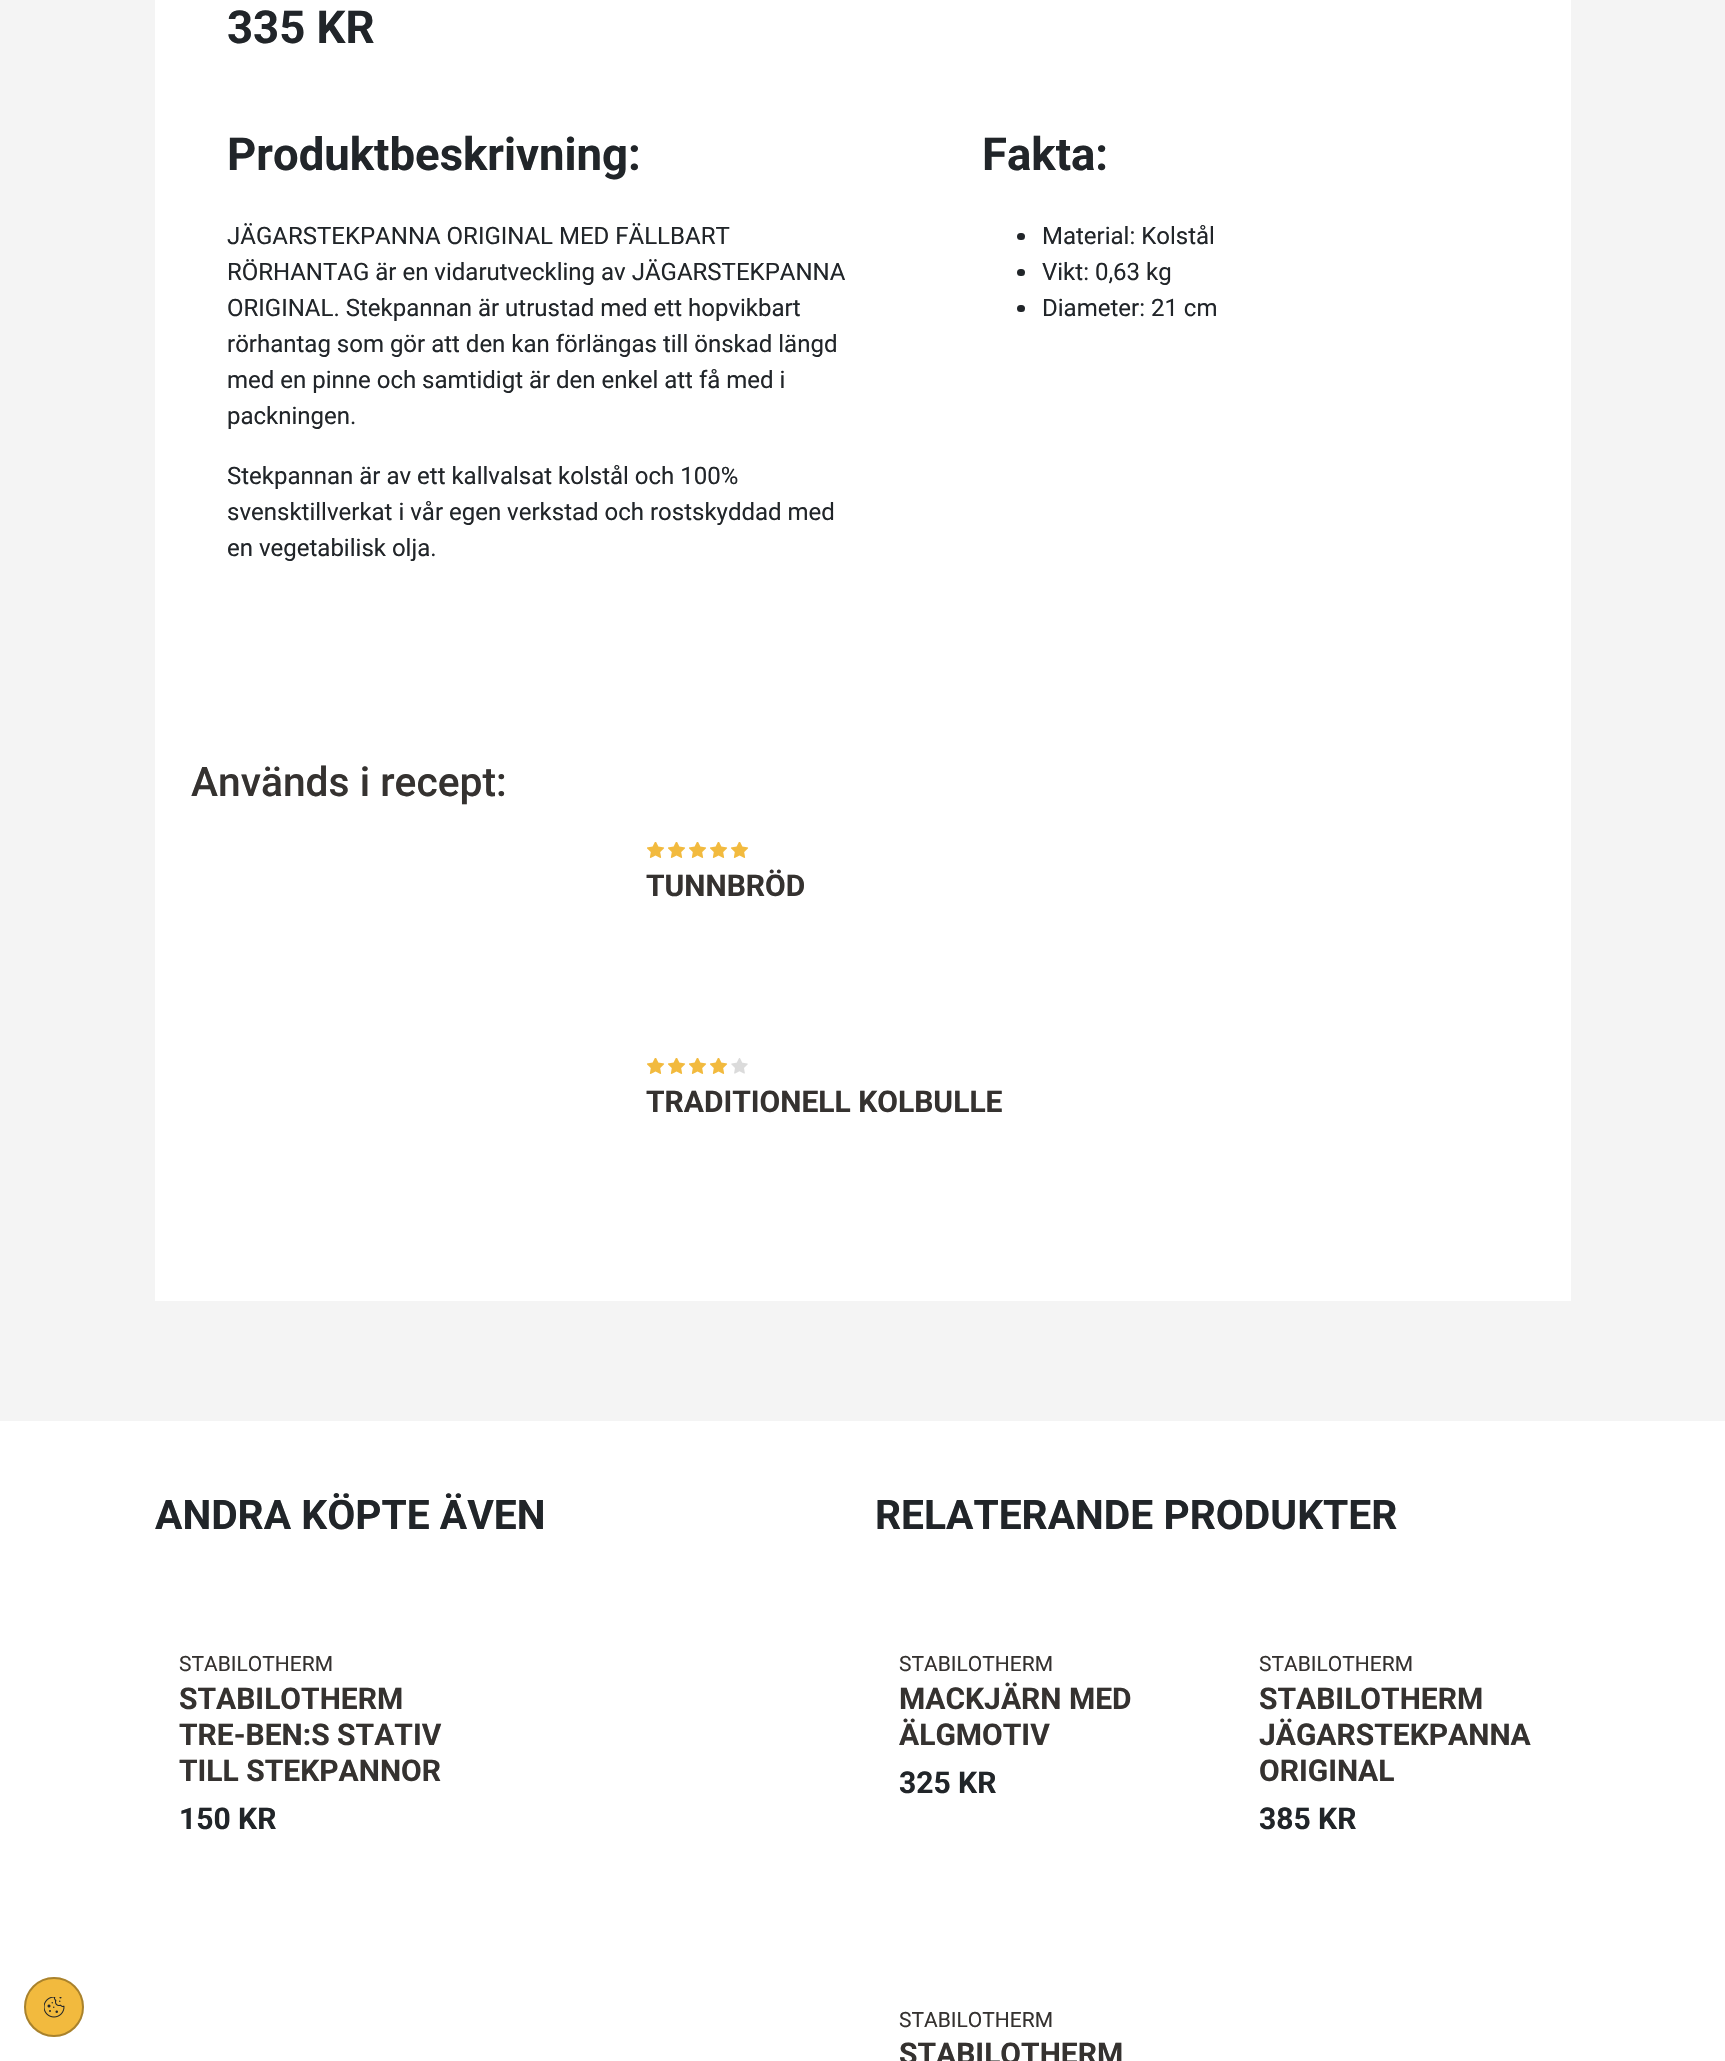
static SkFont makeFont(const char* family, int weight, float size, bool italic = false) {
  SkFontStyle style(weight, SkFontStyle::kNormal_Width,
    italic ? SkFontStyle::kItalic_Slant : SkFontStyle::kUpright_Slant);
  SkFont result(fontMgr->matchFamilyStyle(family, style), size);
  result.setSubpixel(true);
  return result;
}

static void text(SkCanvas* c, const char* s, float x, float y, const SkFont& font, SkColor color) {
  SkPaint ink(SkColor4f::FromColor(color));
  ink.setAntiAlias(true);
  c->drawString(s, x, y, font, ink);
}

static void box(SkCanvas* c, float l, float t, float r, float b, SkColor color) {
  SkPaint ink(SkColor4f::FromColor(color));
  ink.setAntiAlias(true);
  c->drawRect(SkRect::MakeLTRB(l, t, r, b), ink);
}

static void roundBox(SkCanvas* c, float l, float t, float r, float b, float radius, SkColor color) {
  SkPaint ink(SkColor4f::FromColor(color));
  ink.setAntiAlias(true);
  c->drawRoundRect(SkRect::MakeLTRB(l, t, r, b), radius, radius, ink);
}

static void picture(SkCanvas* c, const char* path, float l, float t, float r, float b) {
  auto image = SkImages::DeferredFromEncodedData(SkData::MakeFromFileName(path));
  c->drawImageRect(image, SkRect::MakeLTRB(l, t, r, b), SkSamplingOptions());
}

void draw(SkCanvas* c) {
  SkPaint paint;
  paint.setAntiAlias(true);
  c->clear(0xfff4f4f4);
  box(c, 155, 0, 1571, 1301, 0xffffffff);
  SkFont face1 = makeFont("Roboto", 700, 45.5f);
  text(c, "335 KR", 227, 43, face1, 0xff212529);
  text(c, "Produktbeskrivning:", 227, 170, face1, 0xff212529);
  SkFont face2 = makeFont("Roboto", 400, 24);
  text(c, "JÄGARSTEKPANNA ORIGINAL MED FÄLLBART", 227, 244, face2, 0xff212529);
  text(c, "RÖRHANTAG är en vidarutveckling av JÄGARSTEKPANNA", 227, 280, face2, 0xff212529);
  text(c, "ORIGINAL. Stekpannan är utrustad med ett hopvikbart", 227, 316, face2, 0xff212529);
  text(c, "rörhantag som gör att den kan förlängas till önskad längd", 227, 352, face2, 0xff212529);
  text(c, "med en pinne och samtidigt är den enkel att få med i", 227, 388, face2, 0xff212529);
  text(c, "packningen.", 227, 424, face2, 0xff212529);
  text(c, "Stekpannan är av ett kallvalsat kolstål och 100%", 227, 484, face2, 0xff212529);
  text(c, "svensktillverkat i vår egen verkstad och rostskyddad med", 227, 520, face2, 0xff212529);
  text(c, "en vegetabilisk olja.", 227, 556, face2, 0xff212529);
  text(c, "Fakta:", 982, 170, face1, 0xff212529);
  roundBox(c, 1017, 233, 1025, 240, 3.5f, 0xff212529);
  text(c, "Material: Kolstål", 1042, 244, face2, 0xff212529);
  roundBox(c, 1017, 269, 1025, 276, 3.5f, 0xff212529);
  text(c, "Vikt: 0,63 kg", 1042, 280, face2, 0xff212529);
  roundBox(c, 1017, 305, 1025, 312, 3.5f, 0xff212529);
  text(c, "Diameter: 21 cm", 1042, 316, face2, 0xff212529);
  SkFont face3 = makeFont("Roboto", 500, 40.75f);
  text(c, "Används i recept:", 191, 796, face3, 0xff353230);
  picture(c, "img_01.png", 647, 842, 665, 858);
  picture(c, "img_01.png", 668, 842, 686, 858);
  picture(c, "img_01.png", 689, 842, 707, 858);
  picture(c, "img_01.png", 710, 842, 728, 858);
  picture(c, "img_01.png", 731, 842, 749, 858);
  SkFont face4 = makeFont("Roboto", 700, 30);
  text(c, "TUNNBRÖD", 646, 896, face4, 0xff353230);
  picture(c, "img_01.png", 647, 1058, 665, 1074);
  picture(c, "img_01.png", 668, 1058, 686, 1074);
  picture(c, "img_01.png", 689, 1058, 707, 1074);
  picture(c, "img_01.png", 710, 1058, 728, 1074);
  picture(c, "img_02.png", 731, 1058, 748, 1074);
  text(c, "TRADITIONELL KOLBULLE", 646, 1112, face4, 0xff353230);
  box(c, 0, 1421, 1725, 2061, 0xffffffff);
  paint.setColor(0xfff2ba3e);
  c->drawCircle(54, 2007, 30, paint);
  paint.setStyle(SkPaint::kStroke_Style);
  paint.setStrokeWidth(2);
  paint.setColor(0x4d000000);
  c->drawCircle(54, 2007, 29, paint);
  picture(c, "img_03.png", 44, 1997, 65, 2018);
  SkFont face5 = makeFont("Roboto", 700, 40.75f);
  text(c, "ANDRA KÖPTE ÄVEN", 155, 1529, face5, 0xff212529);
  SkFont face6 = makeFont("Roboto", 400, 21);
  text(c, "STABILOTHERM", 179, 1671, face6, 0xff353230);
  text(c, "STABILOTHERM", 179, 1709, face4, 0xff353230);
  text(c, "TRE-BEN:S STATIV", 179, 1745, face4, 0xff353230);
  text(c, "TILL STEKPANNOR", 179, 1781, face4, 0xff353230);
  text(c, "150 KR", 179, 1829, face4, 0xff212529);
  text(c, "RELATERANDE PRODUKTER", 875, 1529, face5, 0xff212529);
  text(c, "STABILOTHERM", 899, 1671, face6, 0xff353230);
  text(c, "MACKJÄRN MED", 899, 1709, face4, 0xff353230);
  text(c, "ÄLGMOTIV", 899, 1745, face4, 0xff353230);
  text(c, "325 KR", 899, 1793, face4, 0xff212529);
  text(c, "STABILOTHERM", 1259, 1671, face6, 0xff353230);
  text(c, "STABILOTHERM", 1259, 1709, face4, 0xff353230);
  text(c, "JÄGARSTEKPANNA", 1259, 1745, face4, 0xff353230);
  text(c, "ORIGINAL", 1259, 1781, face4, 0xff353230);
  text(c, "385 KR", 1259, 1829, face4, 0xff212529);
  text(c, "STABILOTHERM", 899, 2027, face6, 0xff353230);
  text(c, "STABILOTHERM", 899, 2064, face4, 0xff353230);
}
